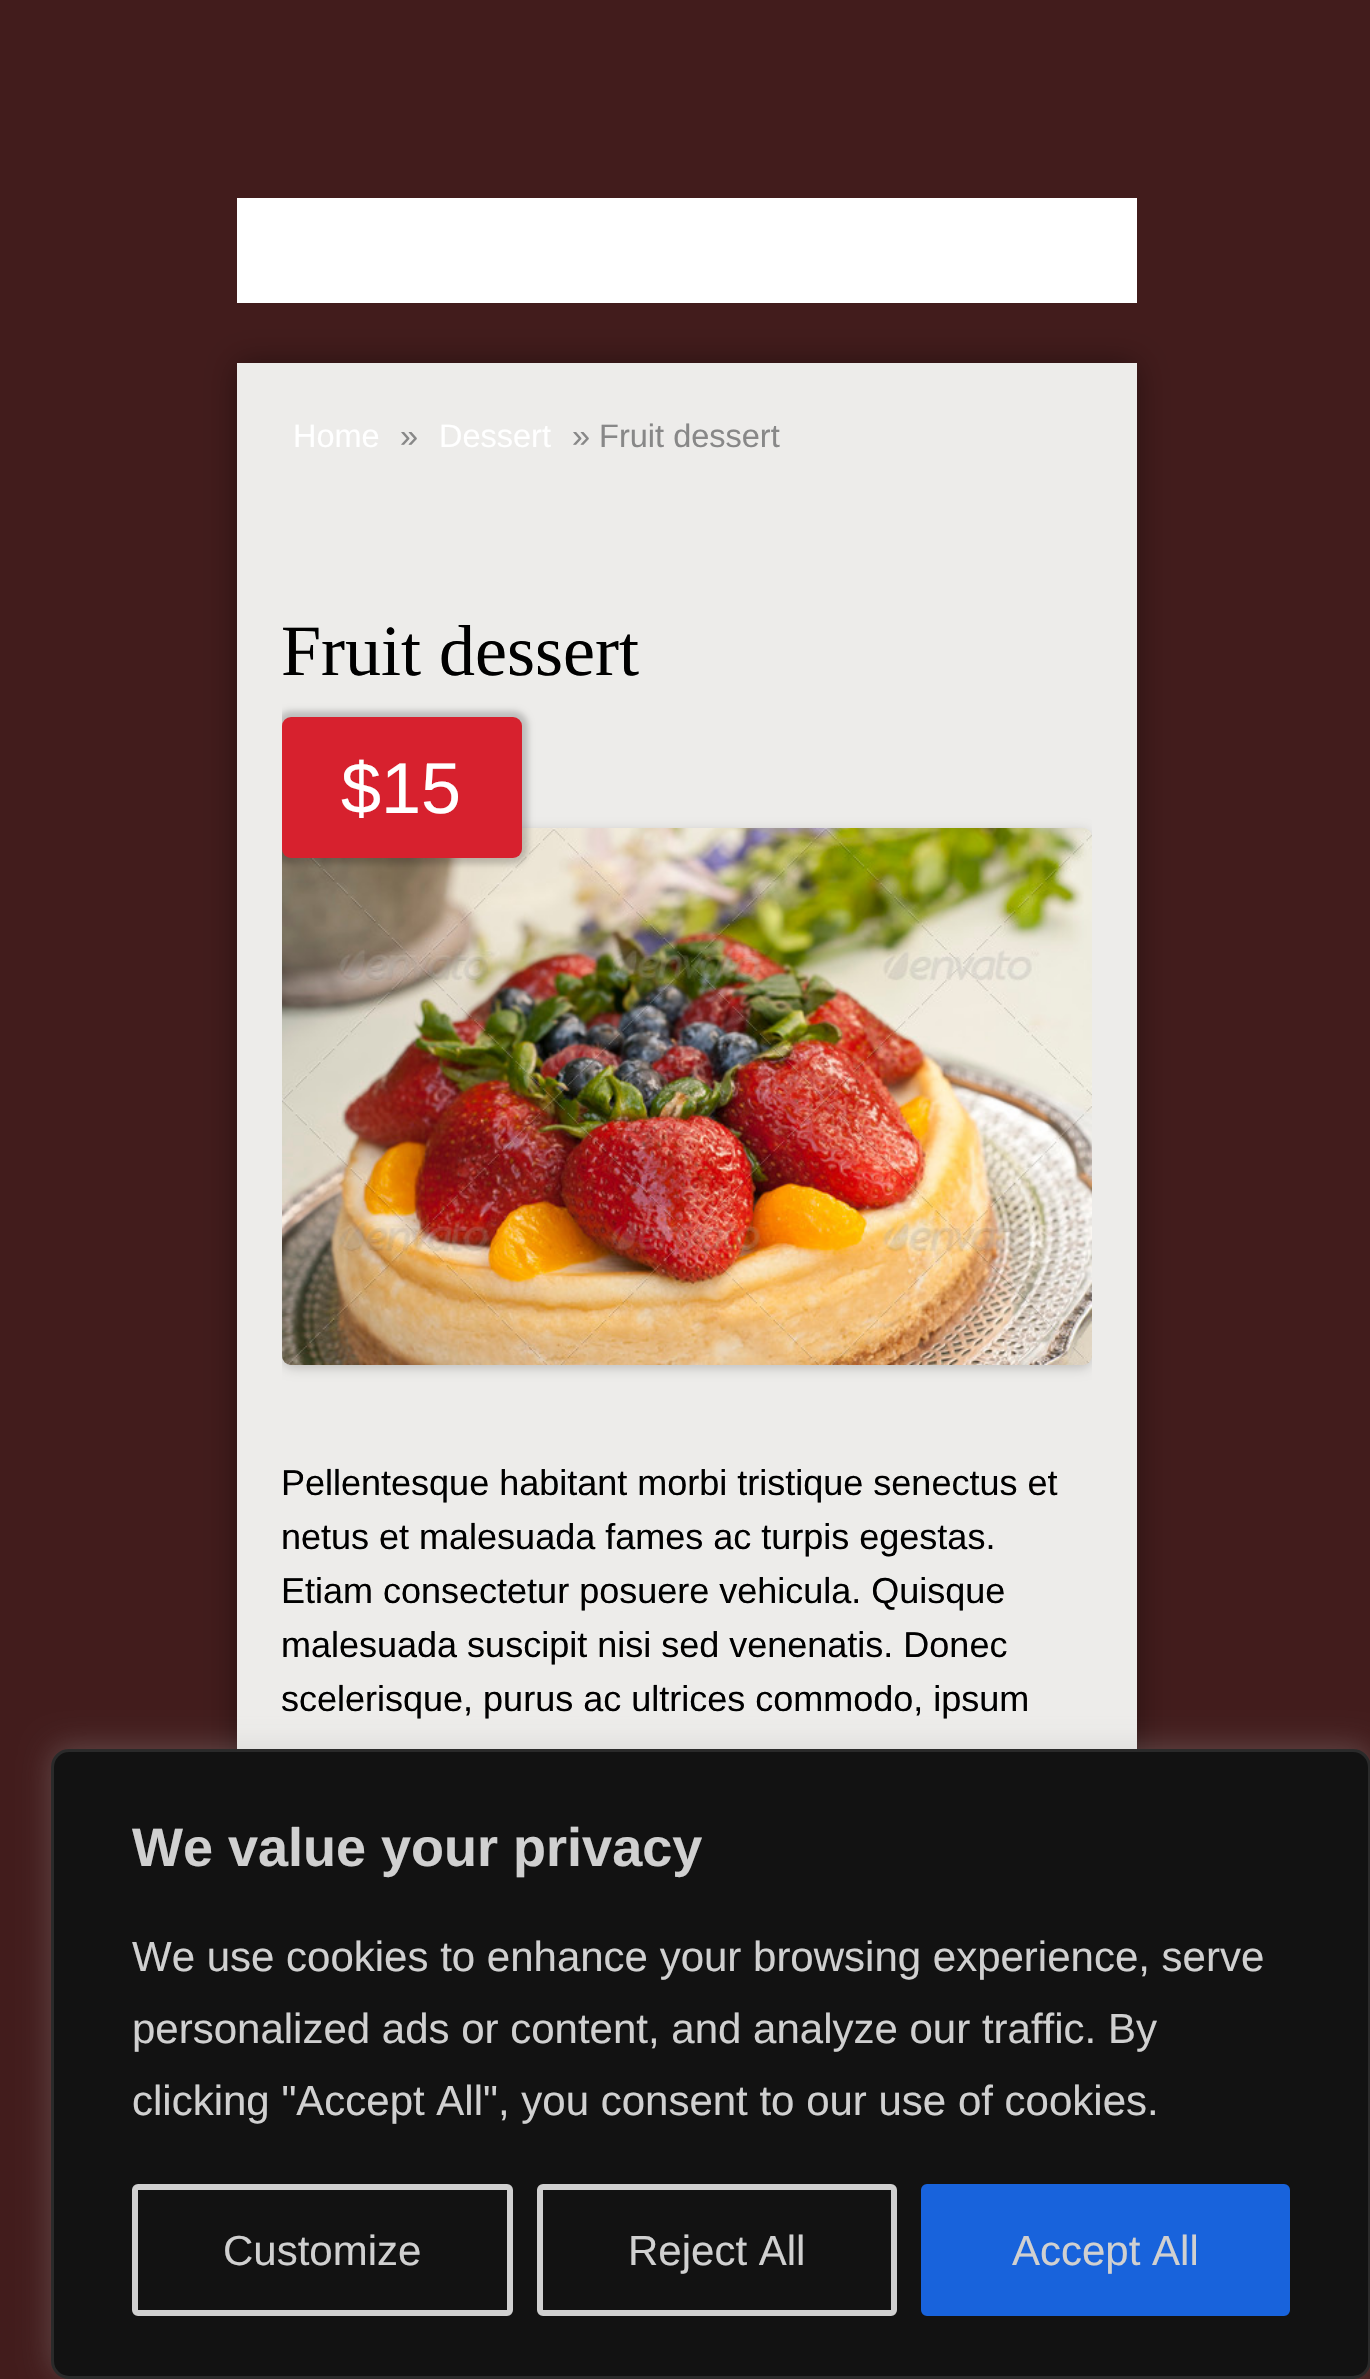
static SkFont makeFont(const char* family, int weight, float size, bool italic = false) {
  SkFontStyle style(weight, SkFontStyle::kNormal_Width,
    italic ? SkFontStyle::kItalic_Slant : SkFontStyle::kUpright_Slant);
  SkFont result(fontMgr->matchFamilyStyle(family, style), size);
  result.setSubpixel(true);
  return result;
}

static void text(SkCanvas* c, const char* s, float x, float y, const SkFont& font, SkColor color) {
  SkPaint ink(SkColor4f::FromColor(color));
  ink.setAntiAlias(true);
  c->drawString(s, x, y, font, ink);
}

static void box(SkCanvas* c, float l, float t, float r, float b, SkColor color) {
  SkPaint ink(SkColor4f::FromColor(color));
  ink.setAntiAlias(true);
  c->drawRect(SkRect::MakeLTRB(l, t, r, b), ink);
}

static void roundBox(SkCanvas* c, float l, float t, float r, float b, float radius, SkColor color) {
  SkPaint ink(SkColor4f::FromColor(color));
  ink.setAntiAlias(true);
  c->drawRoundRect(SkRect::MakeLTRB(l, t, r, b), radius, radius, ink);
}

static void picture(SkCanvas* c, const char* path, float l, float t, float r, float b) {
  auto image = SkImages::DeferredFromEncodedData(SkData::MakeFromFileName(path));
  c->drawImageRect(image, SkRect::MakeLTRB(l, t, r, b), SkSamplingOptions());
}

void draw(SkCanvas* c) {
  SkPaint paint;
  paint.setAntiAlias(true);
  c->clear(0xff421c1c);
  box(c, 237, 198, 1137, 303, 0xffffffff);
  paint.setColor(0x66000000);
  paint.setMaskFilter(SkMaskFilter::MakeBlur(kNormal_SkBlurStyle, 15));
  c->drawRect(SkRect::MakeLTRB(237, 363, 1137, 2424), paint);
  paint.setMaskFilter(nullptr);
  box(c, 237, 363, 1137, 1749, 0xffedecea);
  SkFont face1 = makeFont("Liberation Sans", 400, 32.5f);
  text(c, "Home", 293, 447, face1, 0xffffffff);
  text(c, "»", 400, 447, face1, 0xff888888);
  text(c, "Dessert", 439, 447, face1, 0xffffffff);
  text(c, "» Fruit dessert", 572, 447, face1, 0xff888888);
  SkFont face2 = makeFont("Liberation Serif", 400, 72);
  text(c, "Fruit dessert", 281, 675, face2, 0xff000000);
  c->save();
  c->clipRect(SkRect::MakeLTRB(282, 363, 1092, 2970));
  paint.setColor(0x33000000);
  paint.setMaskFilter(SkMaskFilter::MakeBlur(kNormal_SkBlurStyle, 6));
  c->drawRoundRect(SkRect::MakeLTRB(282, 831, 1092, 1368), 12, 12, paint);
  paint.setMaskFilter(nullptr);
  c->restore();
  picture(c, "img_01.png", 282, 828, 1092, 1365);
  c->save();
  c->clipRect(SkRect::MakeLTRB(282, 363, 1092, 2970));
  paint.setMaskFilter(SkMaskFilter::MakeBlur(kNormal_SkBlurStyle, 3));
  c->drawRoundRect(SkRect::MakeLTRB(276, 711, 528, 864), 15, 15, paint);
  paint.setMaskFilter(nullptr);
  c->restore();
  roundBox(c, 282, 717, 522, 858, 9, 0xffd7212e);
  SkFont face3 = makeFont("Liberation Sans", 400, 72);
  text(c, "$15", 341, 813, face3, 0xffffffff);
  SkFont face4 = makeFont("Liberation Sans", 400, 36);
  text(c, "Pellentesque habitant morbi tristique senectus et", 281, 1495, face4, 0xff000000);
  text(c, "netus et malesuada fames ac turpis egestas.", 281, 1549, face4, 0xff000000);
  text(c, "Etiam consectetur posuere vehicula. Quisque", 281, 1603, face4, 0xff000000);
  text(c, "malesuada suscipit nisi sed venenatis. Donec", 281, 1657, face4, 0xff000000);
  text(c, "scelerisque, purus ac ultrices commodo, ipsum", 281, 1711, face4, 0xff000000);
  paint.setColor(0x4dacabab);
  paint.setMaskFilter(SkMaskFilter::MakeBlur(kNormal_SkBlurStyle, 15));
  c->drawRoundRect(SkRect::MakeLTRB(51, 1746, 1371, 2376), 18, 18, paint);
  paint.setMaskFilter(nullptr);
  paint.setColor(0xff121212);
  c->drawRoundRect(SkRect::MakeLTRB(52.5f, 1750.5f, 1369.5f, 2377.5f), 16.5f, 16.5f, paint);
  paint.setStyle(SkPaint::kStroke_Style);
  paint.setStrokeWidth(3);
  paint.setColor(0xff2a2a2a);
  c->drawRoundRect(SkRect::MakeLTRB(52.5f, 1750.5f, 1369.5f, 2377.5f), 16.5f, 16.5f, paint);
  SkFont face5 = makeFont("Liberation Sans", 700, 54);
  text(c, "We value your privacy", 132, 1866, face5, 0xffd0d0d0);
  SkFont face6 = makeFont("Liberation Sans", 400, 42);
  text(c, "We use cookies to enhance your browsing experience, serve", 132, 1971, face6, 0xffd0d0d0);
  text(c, "personalized ads or content, and analyze our traffic. By", 132, 2043, face6, 0xffd0d0d0);
  text(c, "clicking \"Accept All\", you consent to our use of cookies.", 132, 2115, face6, 0xffd0d0d0);
  paint.setStrokeWidth(6);
  paint.setColor(0xffd0d0d0);
  c->drawRoundRect(SkRect::MakeLTRB(135, 2187, 510, 2313), 3, 3, paint);
  text(c, "Customize", 223, 2265, face6, 0xffd0d0d0);
  c->drawRoundRect(SkRect::MakeLTRB(540, 2187, 894, 2313), 3, 3, paint);
  text(c, "Reject All", 628, 2265, face6, 0xffd0d0d0);
  paint.setStyle(SkPaint::kFill_Style);
  paint.setColor(0xff1863dc);
  c->drawRoundRect(SkRect::MakeLTRB(924, 2187, 1287, 2313), 3, 3, paint);
  paint.setStyle(SkPaint::kStroke_Style);
  c->drawRoundRect(SkRect::MakeLTRB(924, 2187, 1287, 2313), 3, 3, paint);
  text(c, "Accept All", 1012, 2265, face6, 0xffd0d0d0);
}
